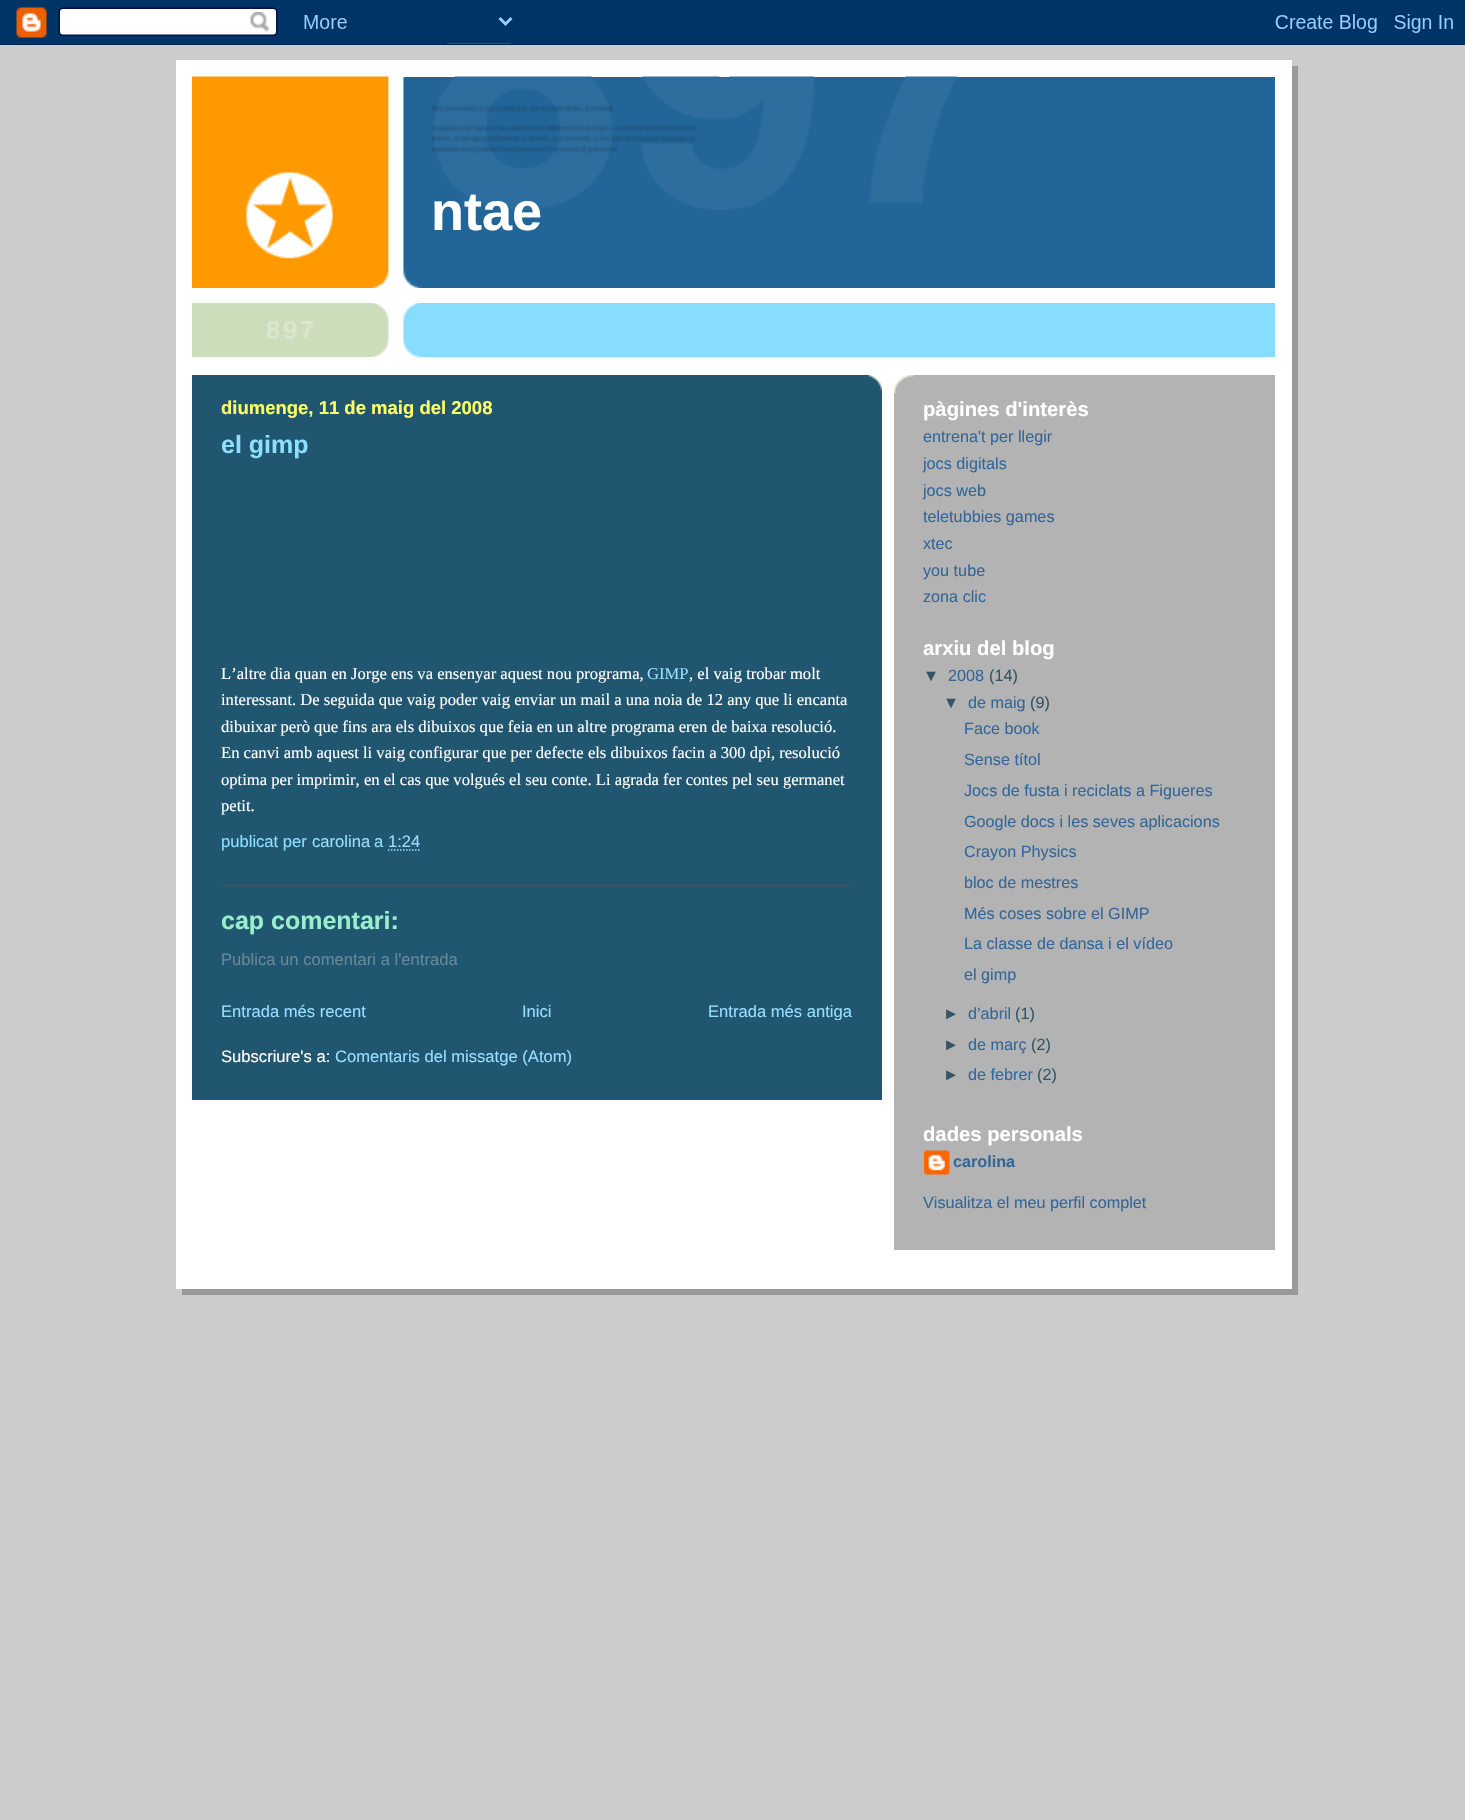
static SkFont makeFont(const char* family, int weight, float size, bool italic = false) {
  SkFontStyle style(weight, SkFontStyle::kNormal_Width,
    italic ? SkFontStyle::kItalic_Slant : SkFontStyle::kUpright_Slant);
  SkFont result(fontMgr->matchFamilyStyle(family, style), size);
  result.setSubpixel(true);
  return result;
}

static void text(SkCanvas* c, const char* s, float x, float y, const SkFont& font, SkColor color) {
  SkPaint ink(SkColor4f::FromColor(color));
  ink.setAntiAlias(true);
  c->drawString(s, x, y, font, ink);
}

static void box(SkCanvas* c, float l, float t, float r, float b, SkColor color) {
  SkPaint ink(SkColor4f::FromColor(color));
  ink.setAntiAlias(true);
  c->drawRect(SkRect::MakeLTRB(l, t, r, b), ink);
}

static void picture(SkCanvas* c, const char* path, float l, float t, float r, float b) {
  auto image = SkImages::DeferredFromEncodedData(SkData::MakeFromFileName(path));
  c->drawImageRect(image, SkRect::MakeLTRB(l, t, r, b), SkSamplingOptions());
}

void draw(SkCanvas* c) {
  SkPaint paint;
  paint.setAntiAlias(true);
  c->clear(0xffcccccc);
  picture(c, "img_01.png", 0, 0, 1465, 45);
  box(c, 182, 66, 1298, 1295, 0xff999999);
  box(c, 176, 60, 1292, 1289, 0xffffffff);
  box(c, 403, 77, 1275, 288, 0xff226699);
  picture(c, "img_02.png", 192, 76, 422, 288);
  picture(c, "img_03.png", 432, 76, 958, 210);
  SkFont face1 = makeFont("Liberation Sans", 700, 54);
  text(c, "ntae", 431, 230, face1, 0xffffffff);
  box(c, 403, 303, 1275, 357, 0xff88ddff);
  picture(c, "img_04.png", 192, 303, 421, 357);
  picture(c, "img_05.png", 371, 340, 421, 357);
  picture(c, "img_06.png", 266, 321, 314, 339);
  box(c, 192, 375, 882, 1100, 0xff215670);
  picture(c, "img_07.png", 868, 375, 882, 393);
  SkFont face2 = makeFont("Liberation Sans", 700, 18.5f);
  text(c, "diumenge, 11 de maig del 2008", 221, 414, face2, 0xffffff66);
  SkFont face3 = makeFont("Liberation Sans", 700, 25);
  text(c, "el gimp", 221, 453, face3, 0xff8cdfff);
  SkFont face4 = makeFont("Liberation Serif", 400, 16.6f);
  text(c, "L’altre dia quan en Jorge ens va ensenyar aquest nou programa,", 221, 679, face4, 0xffffffff);
  text(c, "GIMP", 647, 679, face4, 0xff99ddff);
  text(c, ", el vaig trobar molt", 689, 679, face4, 0xffffffff);
  text(c, "interessant. De seguida que vaig poder vaig enviar un mail a una noia de 12 any que li encanta", 221, 705, face4, 0xffffffff);
  text(c, "dibuixar però que fins ara els dibuixos que feia en un altre programa eren de baixa resolució.", 221, 732, face4, 0xffffffff);
  text(c, "En canvi amb aquest li vaig configurar que per defecte els dibuixos facin a 300 dpi, resolució", 221, 758, face4, 0xffffffff);
  text(c, "optima per imprimir, en el cas que volgués el seu conte. Li agrada fer contes pel seu germanet", 221, 785, face4, 0xffffffff);
  text(c, "petit.", 221, 811, face4, 0xffffffff);
  SkFont face5 = makeFont("Liberation Sans", 400, 16.6f);
  text(c, "publicat per", 221, 847, face5, 0xff8cdfff);
  text(c, "carolina", 312, 847, face5, 0xff99ddff);
  text(c, "a", 374, 847, face5, 0xff8cdfff);
  paint.setStyle(SkPaint::kStroke_Style);
  paint.setStrokeWidth(1.5f);
  paint.setColor(0xff99ddff);
  paint.setPathEffect(SkDashPathEffect::Make({{1.5f, 1.5f}}, 0));
  c->drawPath(SkPathBuilder().moveTo(388, 850).lineTo(420.5f, 850).detach(), paint);
  paint.setPathEffect(nullptr);
  text(c, "1:24", 388, 847, face5, 0xff99ddff);
  box(c, 222, 884, 852, 887, 0xff335566);
  text(c, "cap comentari:", 221, 929, face3, 0xff99eecc);
  text(c, "Publica un comentari a l'entrada", 221, 965, face5, 0xff668899);
  text(c, "Entrada més recent", 221, 1017, face5, 0xff99ddff);
  text(c, "Inici", 522, 1017, face5, 0xff99ddff);
  c->save();
  c->clipRect(SkRect::MakeLTRB(222, 1002, 852, 1020));
  text(c, "Entrada més antiga", 708, 1017, face5, 0xff99ddff);
  c->restore();
  text(c, "Subscriure's a:", 221, 1062, face5, 0xffffffff);
  text(c, "Comentaris del missatge (Atom)", 335, 1062, face5, 0xff99ddff);
  box(c, 894, 375, 1275, 1250, 0xffb3b3b3);
  picture(c, "img_08.png", 894, 375, 914, 393);
  SkFont face6 = makeFont("Liberation Sans", 700, 20.25f);
  text(c, "pàgines d'interès", 923, 416, face6, 0xffffffff);
  SkFont face7 = makeFont("Liberation Sans", 400, 16.2f);
  text(c, "entrena't per llegir", 923, 442, face7, 0xff336699);
  text(c, "jocs digitals", 923, 469, face7, 0xff336699);
  text(c, "jocs web", 923, 496, face7, 0xff336699);
  text(c, "teletubbies games", 923, 522, face7, 0xff336699);
  text(c, "xtec", 923, 549, face7, 0xff336699);
  text(c, "you tube", 923, 576, face7, 0xff336699);
  text(c, "zona clic", 923, 602, face7, 0xff336699);
  text(c, "arxiu del blog", 923, 655, face6, 0xffffffff);
  text(c, "▼", 923, 681, face7, 0xff335566);
  text(c, "2008", 948, 681, face7, 0xff336699);
  text(c, "(14)", 989, 681, face7, 0xff335566);
  text(c, "▼", 943, 708, face7, 0xff335566);
  text(c, "de maig", 968, 708, face7, 0xff336699);
  text(c, "(9)", 1030, 708, face7, 0xff335566);
  text(c, "Face book", 964, 734, face7, 0xff336699);
  text(c, "Sense títol", 964, 765, face7, 0xff336699);
  text(c, "Jocs de fusta i reciclats a Figueres", 964, 796, face7, 0xff336699);
  text(c, "Google docs i les seves aplicacions", 964, 827, face7, 0xff336699);
  text(c, "Crayon Physics", 964, 857, face7, 0xff336699);
  text(c, "bloc de mestres", 964, 888, face7, 0xff336699);
  text(c, "Més coses sobre el GIMP", 964, 919, face7, 0xff336699);
  text(c, "La classe de dansa i el vídeo", 964, 949, face7, 0xff336699);
  text(c, "el gimp", 964, 980, face7, 0xff336699);
  text(c, "►", 943, 1019, face7, 0xff335566);
  text(c, "d’abril", 968, 1019, face7, 0xff336699);
  text(c, "(1)", 1015, 1019, face7, 0xff335566);
  text(c, "►", 943, 1050, face7, 0xff335566);
  text(c, "de març", 968, 1050, face7, 0xff336699);
  text(c, "(2)", 1031, 1050, face7, 0xff335566);
  text(c, "►", 943, 1080, face7, 0xff335566);
  text(c, "de febrer", 968, 1080, face7, 0xff336699);
  text(c, "(2)", 1037, 1080, face7, 0xff335566);
  text(c, "dades personals", 923, 1141, face6, 0xffffffff);
  picture(c, "img_09.png", 924, 1150, 950, 1175);
  SkFont face8 = makeFont("Liberation Sans", 700, 16.2f);
  text(c, "carolina", 953, 1167, face8, 0xff336699);
  text(c, "Visualitza el meu perfil complet", 923, 1208, face7, 0xff336699);
}
